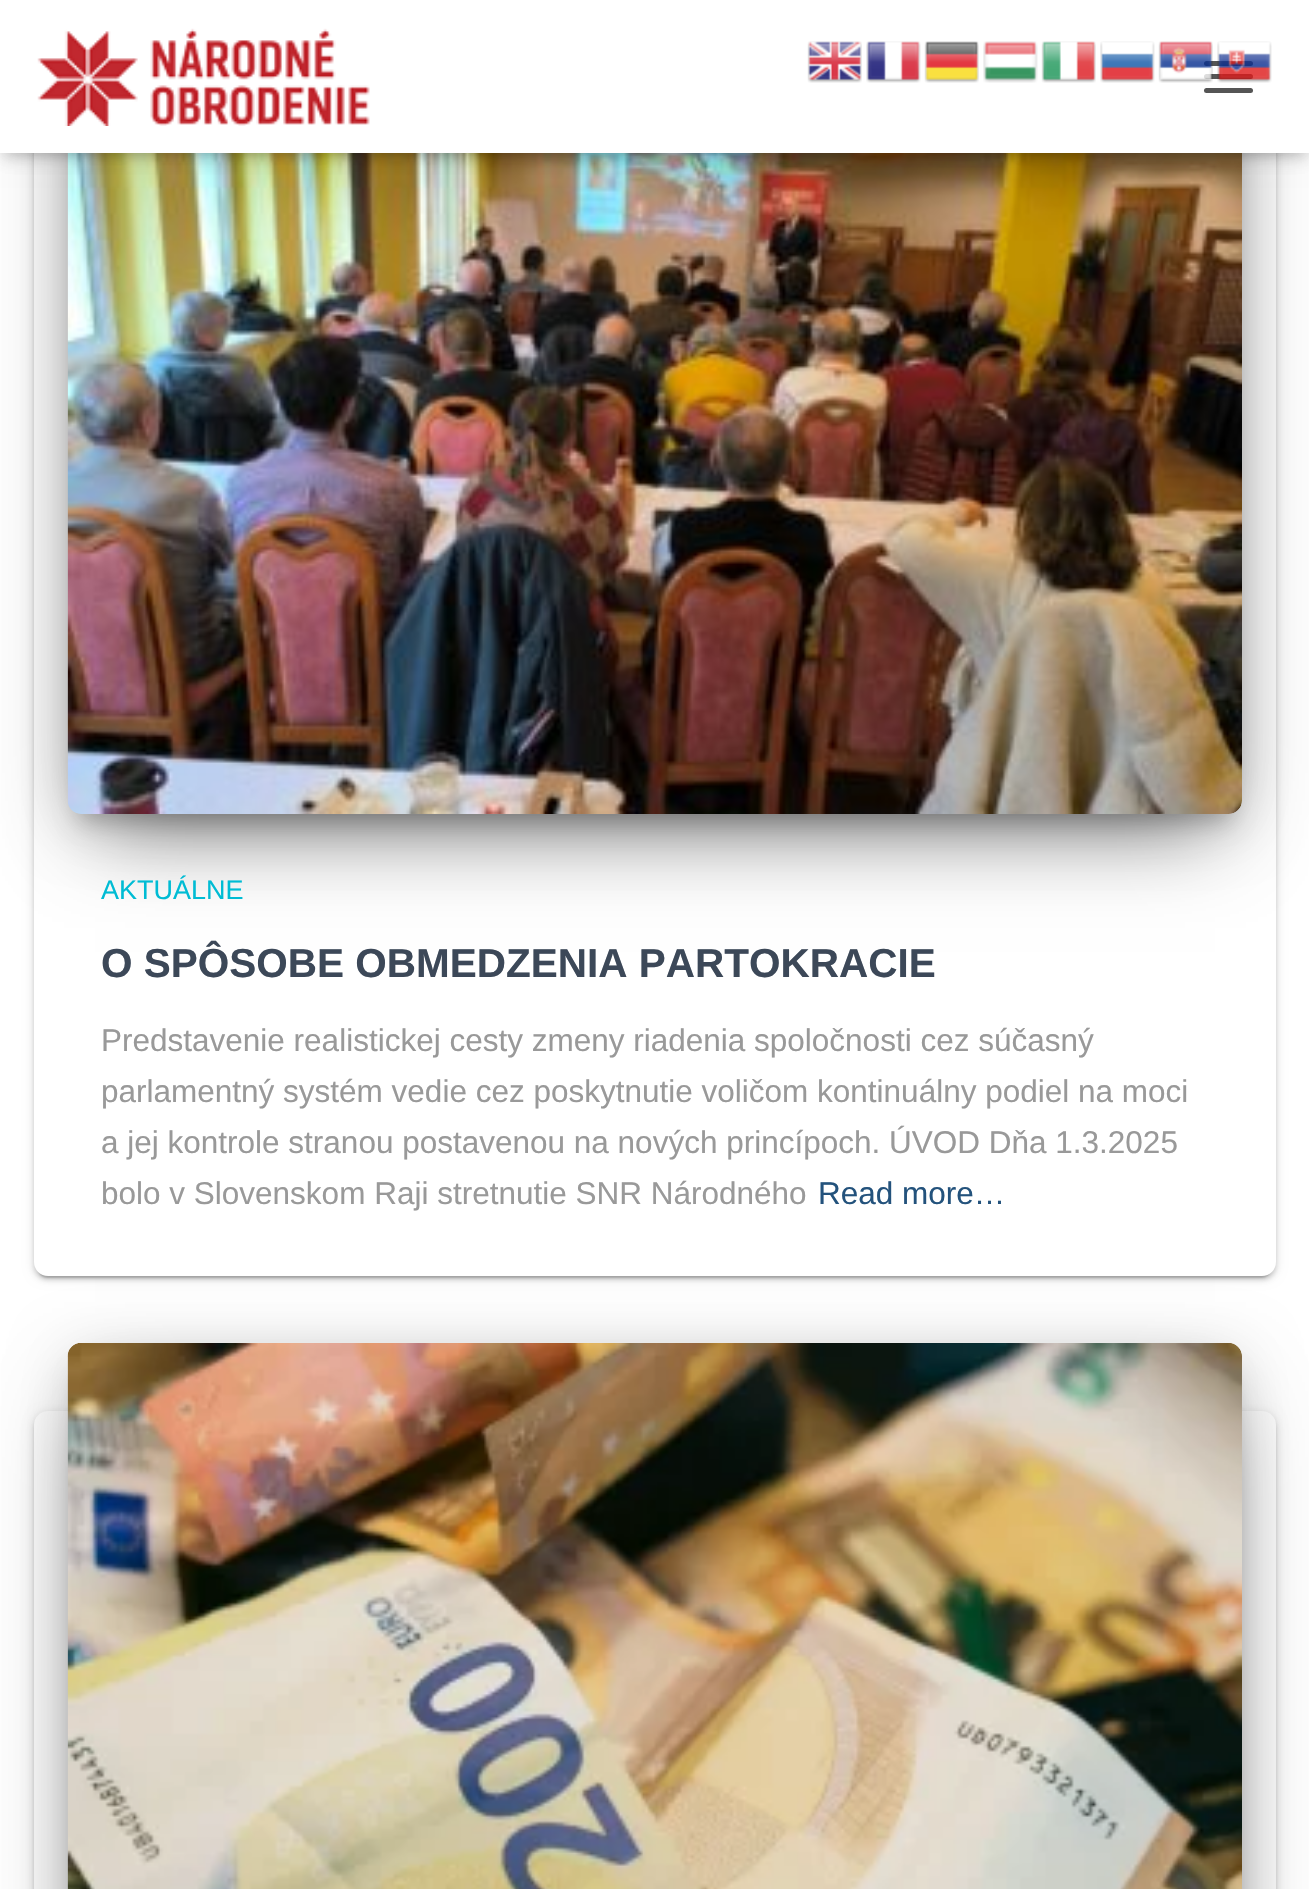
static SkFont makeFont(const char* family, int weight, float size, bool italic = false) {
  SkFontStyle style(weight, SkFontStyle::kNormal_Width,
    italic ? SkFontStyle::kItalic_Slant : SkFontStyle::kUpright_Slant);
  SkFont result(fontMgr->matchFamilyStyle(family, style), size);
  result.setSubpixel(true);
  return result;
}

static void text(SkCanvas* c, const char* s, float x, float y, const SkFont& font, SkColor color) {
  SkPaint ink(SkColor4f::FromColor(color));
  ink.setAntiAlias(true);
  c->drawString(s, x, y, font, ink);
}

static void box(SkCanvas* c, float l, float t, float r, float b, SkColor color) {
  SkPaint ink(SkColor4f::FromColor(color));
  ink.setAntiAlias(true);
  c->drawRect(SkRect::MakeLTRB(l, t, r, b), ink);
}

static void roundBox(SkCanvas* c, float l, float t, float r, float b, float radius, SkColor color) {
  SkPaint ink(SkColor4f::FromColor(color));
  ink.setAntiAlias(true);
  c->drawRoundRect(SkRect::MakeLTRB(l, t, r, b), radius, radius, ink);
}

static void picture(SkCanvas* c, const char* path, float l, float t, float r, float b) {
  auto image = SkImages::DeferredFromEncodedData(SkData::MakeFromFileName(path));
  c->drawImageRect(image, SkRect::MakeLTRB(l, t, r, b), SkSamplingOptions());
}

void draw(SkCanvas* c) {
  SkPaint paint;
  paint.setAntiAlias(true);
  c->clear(0xffffffff);
  paint.setColor(0x1f000000);
  paint.setMaskFilter(SkMaskFilter::MakeBlur(kNormal_SkBlurStyle, 5.5f));
  c->drawRoundRect(SkRect::MakeLTRB(34, 101, 1276, 1278), 14, 14, paint);
  paint.setMaskFilter(nullptr);
  paint.setColor(0x33000000);
  paint.setMaskFilter(SkMaskFilter::MakeBlur(kNormal_SkBlurStyle, 1));
  c->drawRoundRect(SkRect::MakeLTRB(38, 110, 1271, 1278), 9, 9, paint);
  paint.setMaskFilter(nullptr);
  paint.setColor(0x24000000);
  paint.setMaskFilter(SkMaskFilter::MakeBlur(kNormal_SkBlurStyle, 2));
  c->drawRoundRect(SkRect::MakeLTRB(34, 104, 1276, 1280), 14, 14, paint);
  paint.setMaskFilter(nullptr);
  roundBox(c, 34, 99, 1276, 1276, 14, 0xffffffff);
  paint.setColor(0x33000000);
  paint.setMaskFilter(SkMaskFilter::MakeBlur(kNormal_SkBlurStyle, 11));
  c->drawRoundRect(SkRect::MakeLTRB(79, 61, 1231, 821), 2, 2, paint);
  paint.setMaskFilter(nullptr);
  paint.setColor(0x1f000000);
  paint.setMaskFilter(SkMaskFilter::MakeBlur(kNormal_SkBlurStyle, 28));
  c->drawRoundRect(SkRect::MakeLTRB(68, 41, 1242, 824), 14, 14, paint);
  paint.setMaskFilter(nullptr);
  paint.setColor(0x8f000000);
  paint.setMaskFilter(SkMaskFilter::MakeBlur(kNormal_SkBlurStyle, 43));
  c->drawRect(SkRect::MakeLTRB(95, 95, 1215, 824), paint);
  paint.setMaskFilter(nullptr);
  picture(c, "img_10.png", 67, 153, 1242, 814);
  paint.setColor(0x1a000000);
  paint.setMaskFilter(SkMaskFilter::MakeBlur(kNormal_SkBlurStyle, 5.5f));
  c->drawRect(SkRect::MakeLTRB(5, 14, 1305, 158), paint);
  paint.setMaskFilter(nullptr);
  paint.setColor(0x1f000000);
  paint.setMaskFilter(SkMaskFilter::MakeBlur(kNormal_SkBlurStyle, 11));
  c->drawRect(SkRect::MakeLTRB(0, 2, 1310, 155), paint);
  paint.setMaskFilter(nullptr);
  paint.setColor(0x6b000000);
  paint.setMaskFilter(SkMaskFilter::MakeBlur(kNormal_SkBlurStyle, 11));
  c->drawRect(SkRect::MakeLTRB(14, 16, 1296, 142), paint);
  paint.setMaskFilter(nullptr);
  box(c, 0, 0, 1309, 153, 0xffffffff);
  picture(c, "img_01.png", 807, 41, 862, 83);
  picture(c, "img_02.png", 866, 41, 921, 83);
  picture(c, "img_03.png", 924, 41, 979, 83);
  picture(c, "img_04.png", 983, 41, 1038, 83);
  picture(c, "img_05.png", 1041, 41, 1096, 83);
  picture(c, "img_06.png", 1100, 41, 1155, 83);
  roundBox(c, 1204, 61, 1253, 66, 2.5f, 0xff555555);
  roundBox(c, 1204, 74, 1253, 79, 2.5f, 0xff555555);
  picture(c, "img_07.png", 1158, 41, 1213, 83);
  picture(c, "img_08.png", 1217, 41, 1272, 83);
  picture(c, "img_09.png", 37, 28, 370, 126);
  roundBox(c, 1204, 88, 1253, 93, 2.5f, 0xff555555);
  SkFont face1 = makeFont("Liberation Sans", 400, 27);
  text(c, "AKTUÁLNE", 101, 899, face1, 0xff00bcd4);
  SkFont face2 = makeFont("Liberation Sans", 700, 40.5f);
  text(c, "O SPÔSOBE OBMEDZENIA PARTOKRACIE", 101, 977, face2, 0xff3c4858);
  SkFont face3 = makeFont("Liberation Sans", 400, 31.5f);
  text(c, "Predstavenie realistickej cesty zmeny riadenia spoločnosti cez súčasný", 101, 1051, face3, 0xff999999);
  text(c, "parlamentný systém vedie cez poskytnutie voličom kontinuálny podiel na moci", 101, 1102, face3, 0xff999999);
  text(c, "a jej kontrole stranou postavenou na nových princípoch. ÚVOD Dňa 1.3.2025", 101, 1153, face3, 0xff999999);
  text(c, "bolo v Slovenskom Raji stretnutie SNR Národného", 101, 1204, face3, 0xff999999);
  text(c, "Read more…", 818, 1204, face3, 0xff23527c);
  paint.setColor(0x1f000000);
  paint.setMaskFilter(SkMaskFilter::MakeBlur(kNormal_SkBlurStyle, 5.5f));
  c->drawRoundRect(SkRect::MakeLTRB(34, 1413, 1276, 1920), 14, 14, paint);
  paint.setMaskFilter(nullptr);
  paint.setColor(0x24000000);
  paint.setMaskFilter(SkMaskFilter::MakeBlur(kNormal_SkBlurStyle, 2));
  c->drawRoundRect(SkRect::MakeLTRB(34, 1415, 1276, 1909), 14, 14, paint);
  paint.setMaskFilter(nullptr);
  roundBox(c, 34, 1411, 1276, 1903, 14, 0xffffffff);
  paint.setColor(0x33000000);
  paint.setMaskFilter(SkMaskFilter::MakeBlur(kNormal_SkBlurStyle, 11));
  c->drawRoundRect(SkRect::MakeLTRB(79, 1373, 1231, 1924), 2, 2, paint);
  paint.setMaskFilter(nullptr);
  paint.setColor(0x1f000000);
  paint.setMaskFilter(SkMaskFilter::MakeBlur(kNormal_SkBlurStyle, 28));
  c->drawRoundRect(SkRect::MakeLTRB(68, 1352, 1242, 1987), 14, 14, paint);
  paint.setMaskFilter(nullptr);
  paint.setColor(0x8f000000);
  paint.setMaskFilter(SkMaskFilter::MakeBlur(kNormal_SkBlurStyle, 43));
  c->drawRect(SkRect::MakeLTRB(95, 1406, 1215, 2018), paint);
  paint.setMaskFilter(nullptr);
  picture(c, "img_11.png", 67, 1343, 1242, 1889);
}
